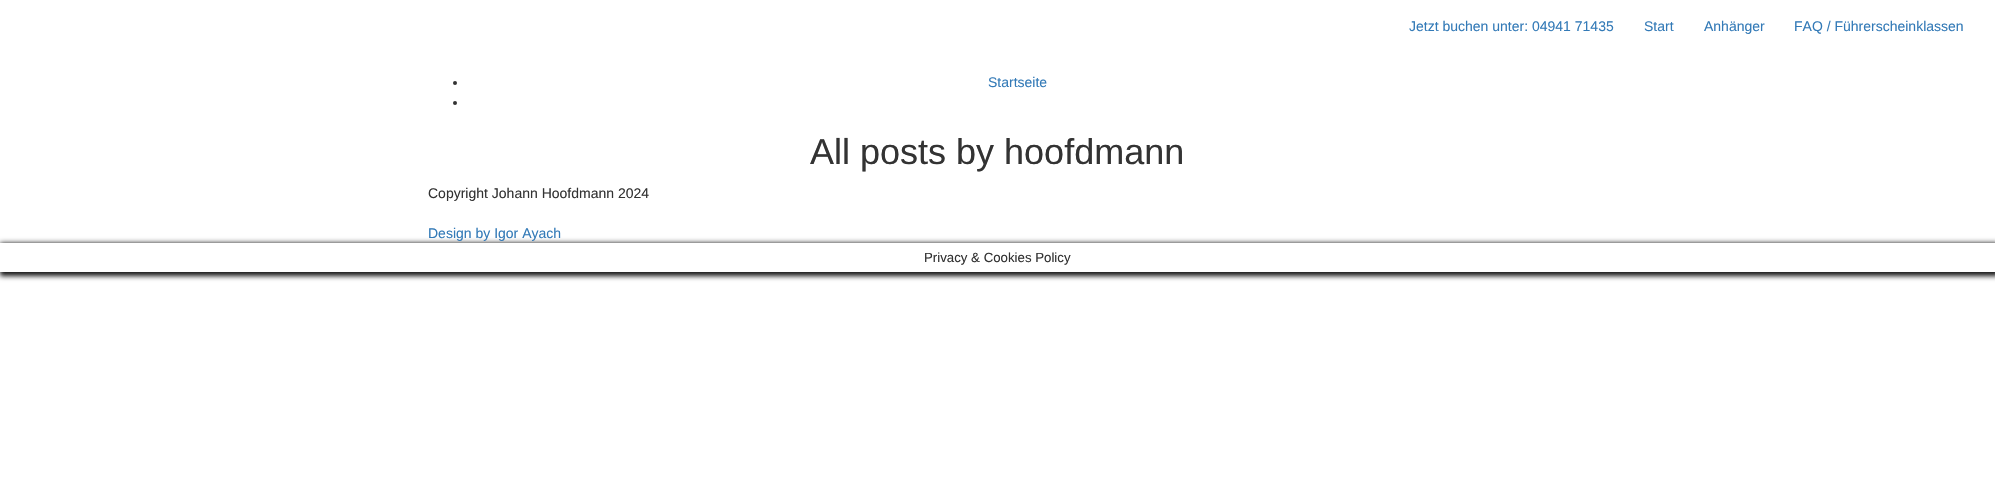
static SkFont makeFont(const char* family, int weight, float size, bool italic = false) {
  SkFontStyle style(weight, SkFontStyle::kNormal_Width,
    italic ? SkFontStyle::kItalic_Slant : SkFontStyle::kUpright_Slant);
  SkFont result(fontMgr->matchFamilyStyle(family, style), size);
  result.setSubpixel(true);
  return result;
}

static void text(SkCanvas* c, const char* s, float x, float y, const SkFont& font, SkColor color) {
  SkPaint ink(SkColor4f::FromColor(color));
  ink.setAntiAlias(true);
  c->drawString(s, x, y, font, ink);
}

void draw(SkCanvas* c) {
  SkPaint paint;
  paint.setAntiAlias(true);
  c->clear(0xffffffff);
  SkFont face1 = makeFont("Liberation Sans", 400, 14);
  text(c, "Jetzt buchen unter: 04941 71435", 1409, 31, face1, 0xff337ab7);
  text(c, "Start", 1644, 31, face1, 0xff337ab7);
  text(c, "Anhänger", 1704, 31, face1, 0xff337ab7);
  text(c, "FAQ / Führerscheinklassen", 1794, 31, face1, 0xff337ab7);
  paint.setColor(0xff333333);
  c->drawCircle(455, 83, 2, paint);
  text(c, "Startseite", 988, 87, face1, 0xff337ab7);
  c->drawCircle(455, 103, 2, paint);
  SkFont face2 = makeFont("Liberation Sans", 400, 36);
  text(c, "All posts by hoofdmann", 810, 164, face2, 0xff333333);
  text(c, "Copyright Johann Hoofdmann 2024", 428, 198, face1, 0xff333333);
  c->save();
  c->clipPath(SkPathBuilder(SkPathFillType::kEvenOdd).moveTo(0, 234).lineTo(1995, 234).lineTo(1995, 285).lineTo(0, 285).close().moveTo(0, 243).lineTo(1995, 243).lineTo(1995, 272).lineTo(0, 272).close().detach(), true);
  paint.setColor(0xff161616);
  paint.setMaskFilter(SkMaskFilter::MakeBlur(kNormal_SkBlurStyle, 2.5f));
  c->drawRect(SkRect::MakeLTRB(0, 243, 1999, 276), paint);
  paint.setMaskFilter(nullptr);
  c->restore();
  text(c, "Design by Igor Ayach", 428, 238, face1, 0xff337ab7);
  SkFont face3 = makeFont("Liberation Sans", 400, 13.25f);
  text(c, "Privacy & Cookies Policy", 924, 262, face3, 0xff333333);
}
